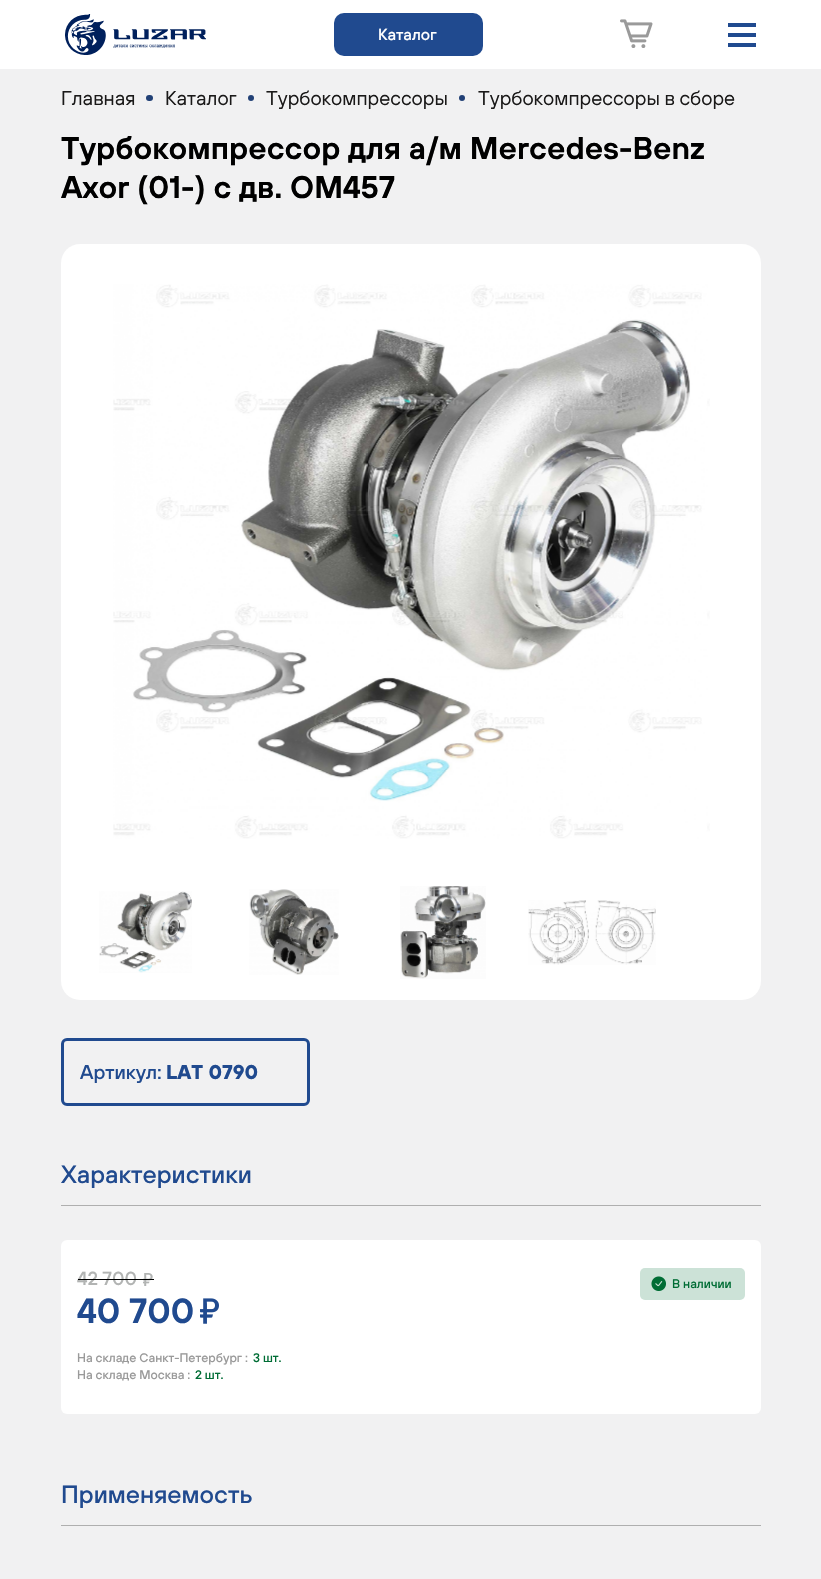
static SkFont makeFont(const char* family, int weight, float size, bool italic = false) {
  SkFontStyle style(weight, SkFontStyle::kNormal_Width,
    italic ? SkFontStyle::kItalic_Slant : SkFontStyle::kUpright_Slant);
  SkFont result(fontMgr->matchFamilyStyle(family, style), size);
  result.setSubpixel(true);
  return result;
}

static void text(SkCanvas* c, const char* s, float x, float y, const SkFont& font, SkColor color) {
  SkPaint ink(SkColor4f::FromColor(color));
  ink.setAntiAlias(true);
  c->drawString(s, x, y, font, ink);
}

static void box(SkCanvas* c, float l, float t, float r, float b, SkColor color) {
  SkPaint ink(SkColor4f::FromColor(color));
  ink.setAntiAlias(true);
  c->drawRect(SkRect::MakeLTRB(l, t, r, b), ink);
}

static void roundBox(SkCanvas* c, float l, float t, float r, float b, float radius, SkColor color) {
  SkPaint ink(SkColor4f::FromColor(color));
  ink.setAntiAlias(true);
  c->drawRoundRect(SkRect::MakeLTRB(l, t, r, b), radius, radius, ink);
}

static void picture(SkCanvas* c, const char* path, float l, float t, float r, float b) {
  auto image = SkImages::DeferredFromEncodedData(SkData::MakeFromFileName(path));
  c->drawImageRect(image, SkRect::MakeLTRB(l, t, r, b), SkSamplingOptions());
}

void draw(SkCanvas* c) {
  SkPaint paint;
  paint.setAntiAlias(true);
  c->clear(0xfff1f1f2);
  box(c, 0, 0, 821, 69, 0xffffffff);
  picture(c, "img_01.png", 65, 14, 206, 55);
  roundBox(c, 334, 13, 483, 56, 10, 0xff204a8f);
  SkFont face1 = makeFont("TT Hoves", 500, 16);
  text(c, "Каталог", 378, 40, face1, 0xffffffff);
  picture(c, "img_02.png", 620, 19, 653, 48);
  box(c, 728, 23, 756, 27, 0xff204a8f);
  box(c, 728, 33, 756, 37, 0xff204a8f);
  box(c, 728, 43, 756, 47, 0xff204a8f);
  SkFont face2 = makeFont("TT Hoves", 400, 20);
  text(c, "Главная", 61, 105, face2, 0xff1a1919);
  roundBox(c, 146, 95, 153, 101, 3, 0xff214076);
  text(c, "Каталог", 165, 105, face2, 0xff1a1919);
  paint.setColor(0xff214076);
  c->drawCircle(251, 98, 3, paint);
  text(c, "Турбокомпрессоры", 266, 105, face2, 0xff1a1919);
  c->drawCircle(462, 98, 3, paint);
  text(c, "Турбокомпрессоры в сборе", 478, 105, face2, 0xff1a1919);
  SkFont face3 = makeFont("TT Hoves", 600, 31.25f);
  text(c, "Турбокомпрессор для а/м Mercedes-Benz", 61, 159, face3, 0xff000000);
  text(c, "Axor (01-) с дв. OM457", 61, 198, face3, 0xff000000);
  roundBox(c, 61, 244, 761, 1000, 19, 0xffffffff);
  picture(c, "img_03.png", 113, 284, 710, 839);
  picture(c, "img_04.png", 99, 891, 192, 973);
  picture(c, "img_05.png", 249, 889, 339, 975);
  picture(c, "img_06.png", 400, 886, 486, 979);
  picture(c, "img_07.png", 528, 900, 656, 965);
  paint.setStyle(SkPaint::kStroke_Style);
  paint.setStrokeWidth(3);
  paint.setColor(0xff204a8f);
  c->drawRoundRect(SkRect::MakeLTRB(62.5f, 1039.5f, 308.5f, 1104.5f), 4.5f, 4.5f, paint);
  SkFont face4 = makeFont("TT Hoves", 500, 20);
  text(c, "Артикул:", 80, 1079, face4, 0xff204a8f);
  SkFont face5 = makeFont("TT Hoves", 700, 20);
  text(c, "LAT 0790", 166, 1079, face5, 0xff204a8f);
  box(c, 61, 1205, 761, 1206, 0xffafafaf);
  SkFont face6 = makeFont("TT Hoves", 500, 25);
  text(c, "Характеристики", 61, 1183, face6, 0xff204a8f);
  roundBox(c, 61, 1240, 761, 1414, 6, 0xffffffff);
  SkFont face7 = makeFont("TT Hoves", 500, 19);
  text(c, "42 700", 77, 1285, face7, 0xffb2b4b3);
  picture(c, "img_08.png", 143, 1273, 153, 1286);
  box(c, 78, 1279, 154, 1280, 0xff000000);
  SkFont face8 = makeFont("TT Hoves", 600, 35);
  text(c, "40 700", 77, 1323, face8, 0xff204a8f);
  picture(c, "img_09.png", 200, 1298, 219, 1324);
  roundBox(c, 640, 1268, 745, 1300, 5, 0xffcce2d7);
  picture(c, "img_10.png", 651, 1276, 666, 1291);
  SkFont face9 = makeFont("TT Hoves", 500, 12.5f);
  text(c, "В наличии", 672, 1288, face9, 0xff006d35);
  text(c, "На складе Санкт-Петербург :", 77, 1362, face9, 0xff9a9a9a);
  text(c, "3 шт.", 253, 1362, face9, 0xff006d35);
  text(c, "На складе Москва :", 77, 1379, face9, 0xff9a9a9a);
  text(c, "2 шт.", 195, 1379, face9, 0xff006d35);
  box(c, 61, 1525, 761, 1526, 0xffafafaf);
  text(c, "Применяемость", 61, 1503, face6, 0xff204a8f);
}
